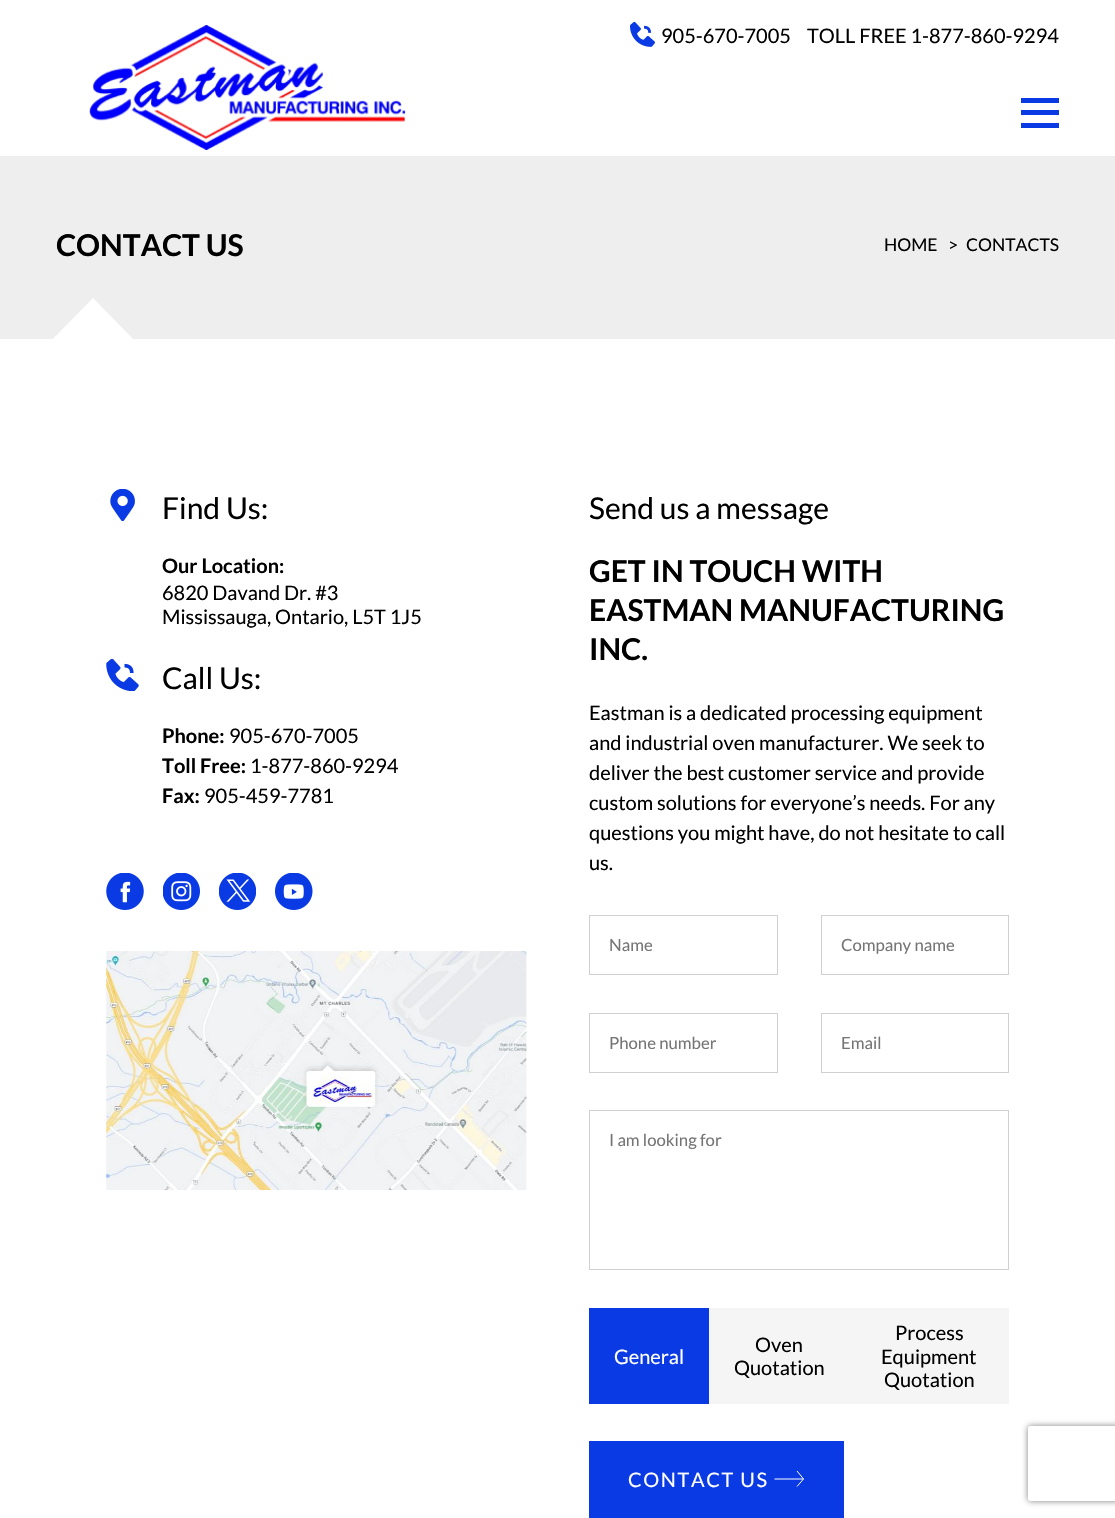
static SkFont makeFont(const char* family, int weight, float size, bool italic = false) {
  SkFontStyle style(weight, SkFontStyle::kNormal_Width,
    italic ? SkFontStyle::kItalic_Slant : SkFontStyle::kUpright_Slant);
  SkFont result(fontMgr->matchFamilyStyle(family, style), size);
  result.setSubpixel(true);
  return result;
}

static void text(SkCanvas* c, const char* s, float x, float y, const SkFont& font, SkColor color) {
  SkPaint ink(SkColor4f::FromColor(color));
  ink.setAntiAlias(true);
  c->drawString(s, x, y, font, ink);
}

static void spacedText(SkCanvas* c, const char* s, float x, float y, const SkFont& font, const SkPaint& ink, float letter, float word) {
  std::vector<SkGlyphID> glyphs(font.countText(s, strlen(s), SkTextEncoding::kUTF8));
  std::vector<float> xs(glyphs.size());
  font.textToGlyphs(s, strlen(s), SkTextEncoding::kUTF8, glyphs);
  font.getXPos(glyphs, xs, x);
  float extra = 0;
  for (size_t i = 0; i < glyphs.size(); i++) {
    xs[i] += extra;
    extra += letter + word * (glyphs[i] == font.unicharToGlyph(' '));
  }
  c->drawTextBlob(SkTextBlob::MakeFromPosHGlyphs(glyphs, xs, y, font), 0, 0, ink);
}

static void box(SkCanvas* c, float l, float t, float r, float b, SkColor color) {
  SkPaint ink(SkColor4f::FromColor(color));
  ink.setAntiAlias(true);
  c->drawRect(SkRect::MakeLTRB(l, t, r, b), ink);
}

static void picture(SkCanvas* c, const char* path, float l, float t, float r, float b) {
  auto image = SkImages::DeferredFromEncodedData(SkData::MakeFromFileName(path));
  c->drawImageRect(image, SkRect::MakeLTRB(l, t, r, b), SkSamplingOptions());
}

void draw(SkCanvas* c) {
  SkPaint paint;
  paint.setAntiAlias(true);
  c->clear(0xffffffff);
  picture(c, "img_01.png", 89, 25, 406, 150);
  box(c, 1021, 110, 1059, 115, 0xff0a3ae3);
  box(c, 1021, 98, 1059, 103, 0xff0a3ae3);
  box(c, 1021, 123, 1059, 128, 0xff0a3ae3);
  picture(c, "img_02.png", 630, 21, 655, 47);
  SkFont face1 = makeFont("Lato", 400, 20);
  text(c, "905-670-7005", 661, 43, face1, 0xff000000);
  text(c, "TOLL FREE 1-877-860-9294", 807, 43, face1, 0xff000000);
  box(c, 0, 156, 1115, 339, 0xffeeeeee);
  SkFont face2 = makeFont("Lato", 700, 30);
  text(c, "CONTACT US", 56, 256, face2, 0xff000000);
  SkFont face3 = makeFont("Lato", 400, 17.5f);
  text(c, "HOME", 884, 251, face3, 0xff000000);
  text(c, ">", 948, 251, face3, 0xff000000);
  text(c, "CONTACTS", 966, 251, face3, 0xff000000);
  c->save();
  c->clipRect(SkRect::MakeLTRB(0, 150, 1115, 339));
  paint.setColor(0xffffffff);
  c->drawPath(SkPathBuilder().moveTo(93, 298).lineTo(146, 352).lineTo(93, 405).lineTo(40, 352).close().detach(), paint);
  c->restore();
  picture(c, "img_03.png", 110, 489, 135, 521);
  SkFont face4 = makeFont("Lato", 400, 30);
  text(c, "Find Us:", 162, 519, face4, 0xff000000);
  SkFont face5 = makeFont("Lato", 700, 20);
  text(c, "Our Location:", 162, 573, face5, 0xff000000);
  text(c, "6820 Davand Dr. #3", 162, 600, face1, 0xff000000);
  text(c, "Mississauga, Ontario, L5T 1J5", 162, 624, face1, 0xff000000);
  picture(c, "img_04.png", 106, 659, 139, 691);
  text(c, "Call Us:", 162, 689, face4, 0xff000000);
  text(c, "Phone:", 162, 743, face5, 0xff000000);
  text(c, "905-670-7005", 229, 743, face1, 0xff000000);
  text(c, "Toll Free:", 162, 773, face5, 0xff000000);
  text(c, "1-877-860-9294", 250, 773, face1, 0xff000000);
  text(c, "Fax:", 162, 803, face5, 0xff000000);
  text(c, "905-459-7781", 204, 803, face1, 0xff000000);
  picture(c, "img_05.png", 106, 873, 144, 910);
  picture(c, "img_06.png", 163, 873, 200, 910);
  picture(c, "img_07.png", 219, 873, 256, 910);
  picture(c, "img_08.png", 275, 873, 313, 910);
  picture(c, "img_09.png", 106, 951, 527, 1190);
  text(c, "Send us a message", 589, 519, face4, 0xff000000);
  text(c, "GET IN TOUCH WITH", 589, 582, face2, 0xff000000);
  text(c, "EASTMAN MANUFACTURING", 589, 621, face2, 0xff000000);
  text(c, "INC.", 589, 660, face2, 0xff000000);
  text(c, "Eastman is a dedicated processing equipment", 589, 720, face1, 0xff000000);
  text(c, "and industrial oven manufacturer. We seek to", 589, 750, face1, 0xff000000);
  text(c, "deliver the best customer service and provide", 589, 780, face1, 0xff000000);
  text(c, "custom solutions for everyone’s needs. For any", 589, 810, face1, 0xff000000);
  text(c, "questions you might have, do not hesitate to call", 589, 840, face1, 0xff000000);
  text(c, "us.", 589, 870, face1, 0xff000000);
  paint.setStyle(SkPaint::kStroke_Style);
  paint.setStrokeWidth(1);
  paint.setColor(0xffd1d1d1);
  c->drawRect(SkRect::MakeLTRB(589.5f, 915.5f, 777.5f, 974.5f), paint);
  SkFont face6 = makeFont("Lato", 400, 16.75f);
  text(c, "Name", 609, 951, face6, 0xff757575);
  c->drawRect(SkRect::MakeLTRB(821.5f, 915.5f, 1008.5f, 974.5f), paint);
  text(c, "Company name", 841, 951, face6, 0xff757575);
  c->drawRect(SkRect::MakeLTRB(589.5f, 1013.5f, 777.5f, 1072.5f), paint);
  text(c, "Phone number", 609, 1049, face6, 0xff757575);
  c->drawRect(SkRect::MakeLTRB(821.5f, 1013.5f, 1008.5f, 1072.5f), paint);
  text(c, "Email", 841, 1049, face6, 0xff757575);
  c->drawRect(SkRect::MakeLTRB(589.5f, 1110.5f, 1008.5f, 1269.5f), paint);
  text(c, "I am looking for", 609, 1146, face6, 0xff757575);
  box(c, 589, 1308, 709, 1404, 0xff0a3ae3);
  text(c, "General", 614, 1364, face1, 0xffffffff);
  box(c, 709, 1308, 1009, 1404, 0xfff5f5f5);
  text(c, "Oven", 755, 1352, face1, 0xff000000);
  text(c, "Quotation", 734, 1375, face1, 0xff000000);
  text(c, "Process", 895, 1340, face1, 0xff000000);
  text(c, "Equipment", 881, 1364, face1, 0xff000000);
  text(c, "Quotation", 884, 1387, face1, 0xff000000);
  box(c, 589, 1441, 844, 1518, 0xff0a3ae3);
  paint.setStyle(SkPaint::kFill_Style);
  paint.setColor(0xffffffff);
  spacedText(c, "CONTACT US", 628, 1487, face1, paint, 1.6f, 0);
  paint.setStyle(SkPaint::kStroke_Style);
  c->drawPath(SkPathBuilder().moveTo(797, 1471).lineTo(803.5f, 1479).lineTo(797, 1486.5f).moveTo(803.5f, 1479).lineTo(774.5f, 1479).detach(), paint);
  c->save();
  c->clipPath(SkPathBuilder(SkPathFillType::kEvenOdd).moveTo(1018, 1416).lineTo(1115, 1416).lineTo(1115, 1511).lineTo(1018, 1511).close().moveTo(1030.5f, 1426).lineTo(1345.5f, 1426).cubicTo(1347, 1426, 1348, 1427, 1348, 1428.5f).lineTo(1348, 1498.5f).cubicTo(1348, 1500, 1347, 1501, 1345.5f, 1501).lineTo(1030.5f, 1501).cubicTo(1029, 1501, 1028, 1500, 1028, 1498.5f).lineTo(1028, 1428.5f).cubicTo(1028, 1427, 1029, 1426, 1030.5f, 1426).close().detach(), true);
  paint.setStyle(SkPaint::kFill_Style);
  paint.setColor(0xff808080);
  paint.setMaskFilter(SkMaskFilter::MakeBlur(kNormal_SkBlurStyle, 3));
  c->drawRoundRect(SkRect::MakeLTRB(1028, 1426, 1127, 1501), 2.5f, 2.5f, paint);
  paint.setMaskFilter(nullptr);
  c->restore();
}
